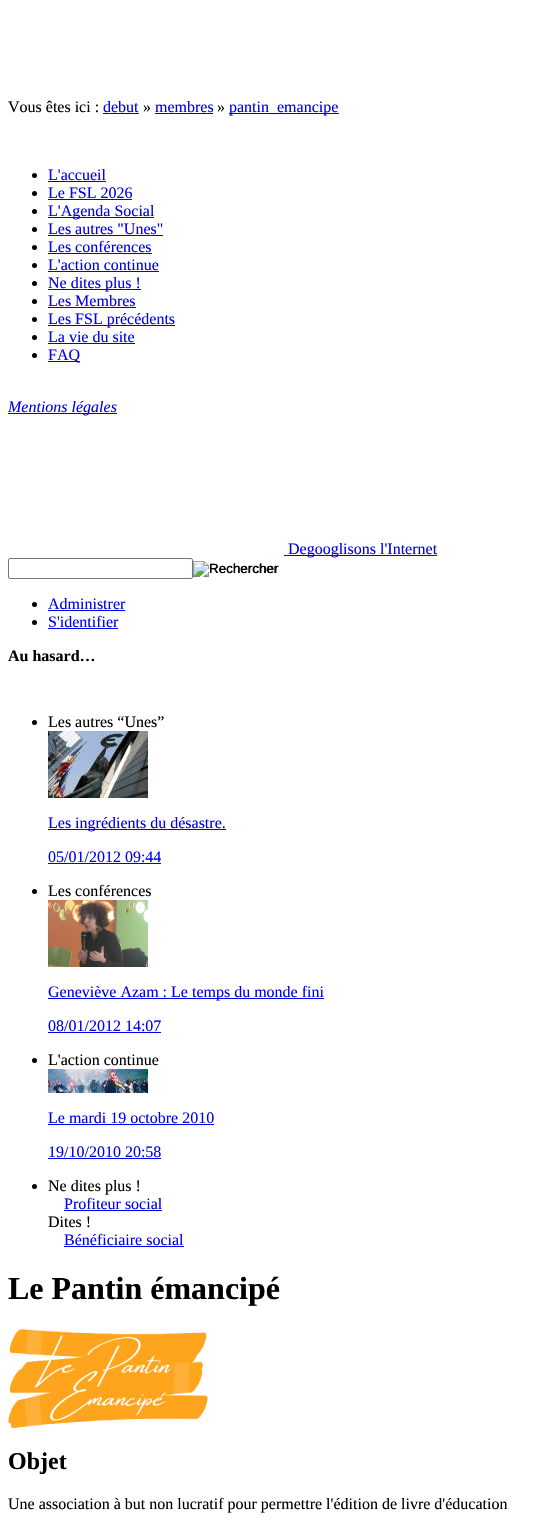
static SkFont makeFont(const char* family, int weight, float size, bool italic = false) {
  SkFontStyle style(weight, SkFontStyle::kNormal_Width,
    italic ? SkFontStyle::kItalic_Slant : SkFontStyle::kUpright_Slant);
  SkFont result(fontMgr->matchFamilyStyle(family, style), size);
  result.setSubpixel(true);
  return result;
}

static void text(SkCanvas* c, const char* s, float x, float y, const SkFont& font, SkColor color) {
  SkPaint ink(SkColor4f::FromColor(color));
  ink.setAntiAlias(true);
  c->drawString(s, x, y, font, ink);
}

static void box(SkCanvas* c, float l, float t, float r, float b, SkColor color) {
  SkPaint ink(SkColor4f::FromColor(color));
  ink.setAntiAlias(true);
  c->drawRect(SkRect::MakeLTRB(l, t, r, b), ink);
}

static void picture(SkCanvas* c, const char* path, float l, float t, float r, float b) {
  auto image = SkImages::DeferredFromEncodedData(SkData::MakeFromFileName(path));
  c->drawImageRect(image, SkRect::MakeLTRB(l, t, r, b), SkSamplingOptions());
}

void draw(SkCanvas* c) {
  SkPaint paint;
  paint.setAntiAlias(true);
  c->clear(0xffffffff);
  SkFont face1 = makeFont("Liberation Serif", 400, 16);
  text(c, "Vous êtes ici :", 8, 112, face1, 0xff000000);
  text(c, "debut", 103, 112, face1, 0xff0000ee);
  box(c, 103, 113, 139, 114, 0xff0000ee);
  text(c, "»", 143, 112, face1, 0xff000000);
  text(c, "membres", 155, 112, face1, 0xff0000ee);
  box(c, 155, 113, 213, 114, 0xff0000ee);
  text(c, "»", 217, 112, face1, 0xff000000);
  box(c, 229, 113, 339, 114, 0xff0000ee);
  text(c, "pantin_emancipe", 229, 112, face1, 0xff0000ee);
  paint.setColor(0xff000000);
  c->drawCircle(34.5f, 175.5f, 2.5f, paint);
  text(c, "L'accueil", 48, 180, face1, 0xff0000ee);
  box(c, 48, 181, 106, 182, 0xff0000ee);
  c->drawCircle(34.5f, 193.5f, 2.5f, paint);
  text(c, "Le FSL 2026", 48, 198, face1, 0xff0000ee);
  box(c, 48, 199, 132, 200, 0xff0000ee);
  c->drawCircle(34.5f, 211.5f, 2.5f, paint);
  box(c, 48, 217, 154, 218, 0xff0000ee);
  text(c, "L'Agenda Social", 48, 216, face1, 0xff0000ee);
  c->drawCircle(34.5f, 229.5f, 2.5f, paint);
  text(c, "Les autres \"Unes\"", 48, 234, face1, 0xff0000ee);
  box(c, 48, 235, 163, 236, 0xff0000ee);
  c->drawCircle(34.5f, 247.5f, 2.5f, paint);
  text(c, "Les conférences", 48, 252, face1, 0xff0000ee);
  box(c, 48, 253, 152, 254, 0xff0000ee);
  c->drawCircle(34.5f, 265.5f, 2.5f, paint);
  text(c, "L'action continue", 48, 270, face1, 0xff0000ee);
  box(c, 48, 271, 159, 272, 0xff0000ee);
  c->drawCircle(34.5f, 283.5f, 2.5f, paint);
  box(c, 48, 289, 141, 290, 0xff0000ee);
  text(c, "Ne dites plus !", 48, 288, face1, 0xff0000ee);
  c->drawCircle(34.5f, 301.5f, 2.5f, paint);
  text(c, "Les Membres", 48, 306, face1, 0xff0000ee);
  box(c, 48, 307, 136, 308, 0xff0000ee);
  c->drawCircle(34.5f, 319.5f, 2.5f, paint);
  box(c, 48, 325, 175, 326, 0xff0000ee);
  text(c, "Les FSL précédents", 48, 324, face1, 0xff0000ee);
  c->drawCircle(34.5f, 337.5f, 2.5f, paint);
  text(c, "La vie du site", 48, 342, face1, 0xff0000ee);
  box(c, 48, 343, 135, 344, 0xff0000ee);
  c->drawCircle(34.5f, 355.5f, 2.5f, paint);
  box(c, 48, 361, 80, 362, 0xff0000ee);
  text(c, "FAQ", 48, 360, face1, 0xff0000ee);
  box(c, 8, 413, 117, 414, 0xff0000ee);
  SkFont face2 = makeFont("Liberation Serif", 400, 16, true);
  text(c, "Mentions légales", 8, 412, face2, 0xff0000ee);
  box(c, 284, 555, 437, 556, 0xff0000ee);
  text(c, "Degooglisons l'Internet", 288, 554, face1, 0xff0000ee);
  paint.setStyle(SkPaint::kStroke_Style);
  paint.setStrokeWidth(1);
  paint.setColor(0xff767676);
  c->drawRoundRect(SkRect::MakeLTRB(8.5f, 558.5f, 192.5f, 578.5f), 1.5f, 1.5f, paint);
  picture(c, "img_01.png", 193, 561, 278, 577);
  SkFont face3 = makeFont("Liberation Sans", 400, 13.5f);
  text(c, "Rechercher", 209, 573, face3, 0xff000000);
  paint.setStyle(SkPaint::kFill_Style);
  paint.setColor(0xff000000);
  c->drawCircle(34.5f, 604.5f, 2.5f, paint);
  text(c, "Administrer", 48, 609, face1, 0xff0000ee);
  box(c, 48, 610, 125, 611, 0xff0000ee);
  c->drawCircle(34.5f, 622.5f, 2.5f, paint);
  text(c, "S'identifier", 48, 627, face1, 0xff0000ee);
  box(c, 48, 628, 118, 629, 0xff0000ee);
  SkFont face4 = makeFont("Liberation Serif", 700, 16);
  text(c, "Au hasard…", 8, 661, face4, 0xff000000);
  c->drawCircle(34.5f, 722.5f, 2.5f, paint);
  text(c, "Les autres “Unes”", 48, 727, face1, 0xff000000);
  picture(c, "img_02.png", 48, 731, 148, 798);
  box(c, 48, 829, 226, 830, 0xff0000ee);
  text(c, "Les ingrédients du désastre.", 48, 828, face1, 0xff0000ee);
  text(c, "05/01/2012 09:44", 48, 862, face1, 0xff0000ee);
  box(c, 48, 863, 161, 864, 0xff0000ee);
  c->drawCircle(34.5f, 891.5f, 2.5f, paint);
  text(c, "Les conférences", 48, 896, face1, 0xff000000);
  picture(c, "img_03.png", 48, 900, 148, 967);
  box(c, 48, 998, 324, 999, 0xff0000ee);
  text(c, "Geneviève Azam : Le temps du monde fini", 48, 997, face1, 0xff0000ee);
  text(c, "08/01/2012 14:07", 48, 1031, face1, 0xff0000ee);
  box(c, 48, 1032, 161, 1033, 0xff0000ee);
  c->drawCircle(34.5f, 1060.5f, 2.5f, paint);
  text(c, "L'action continue", 48, 1065, face1, 0xff000000);
  picture(c, "img_04.png", 48, 1069, 148, 1093);
  text(c, "Le mardi 19 octobre 2010", 48, 1123, face1, 0xff0000ee);
  box(c, 48, 1124, 214, 1125, 0xff0000ee);
  text(c, "19/10/2010 20:58", 48, 1157, face1, 0xff0000ee);
  box(c, 48, 1158, 161, 1159, 0xff0000ee);
  c->drawCircle(34.5f, 1186.5f, 2.5f, paint);
  text(c, "Ne dites plus !", 48, 1191, face1, 0xff000000);
  text(c, "Profiteur social", 64, 1209, face1, 0xff0000ee);
  box(c, 64, 1210, 162, 1211, 0xff0000ee);
  text(c, "Dites !", 48, 1227, face1, 0xff000000);
  text(c, "Bénéficiaire social", 64, 1245, face1, 0xff0000ee);
  box(c, 64, 1246, 184, 1247, 0xff0000ee);
  SkFont face5 = makeFont("Liberation Serif", 700, 32);
  text(c, "Le Pantin émancipé", 8, 1299, face5, 0xff000000);
  picture(c, "img_05.png", 8, 1329, 208, 1428);
  SkFont face6 = makeFont("Liberation Serif", 700, 24);
  text(c, "Objet", 8, 1469, face6, 0xff000000);
  text(c, "Une association à but non lucratif pour permettre l'édition de livre d'éducation", 8, 1509, face1, 0xff000000);
}
